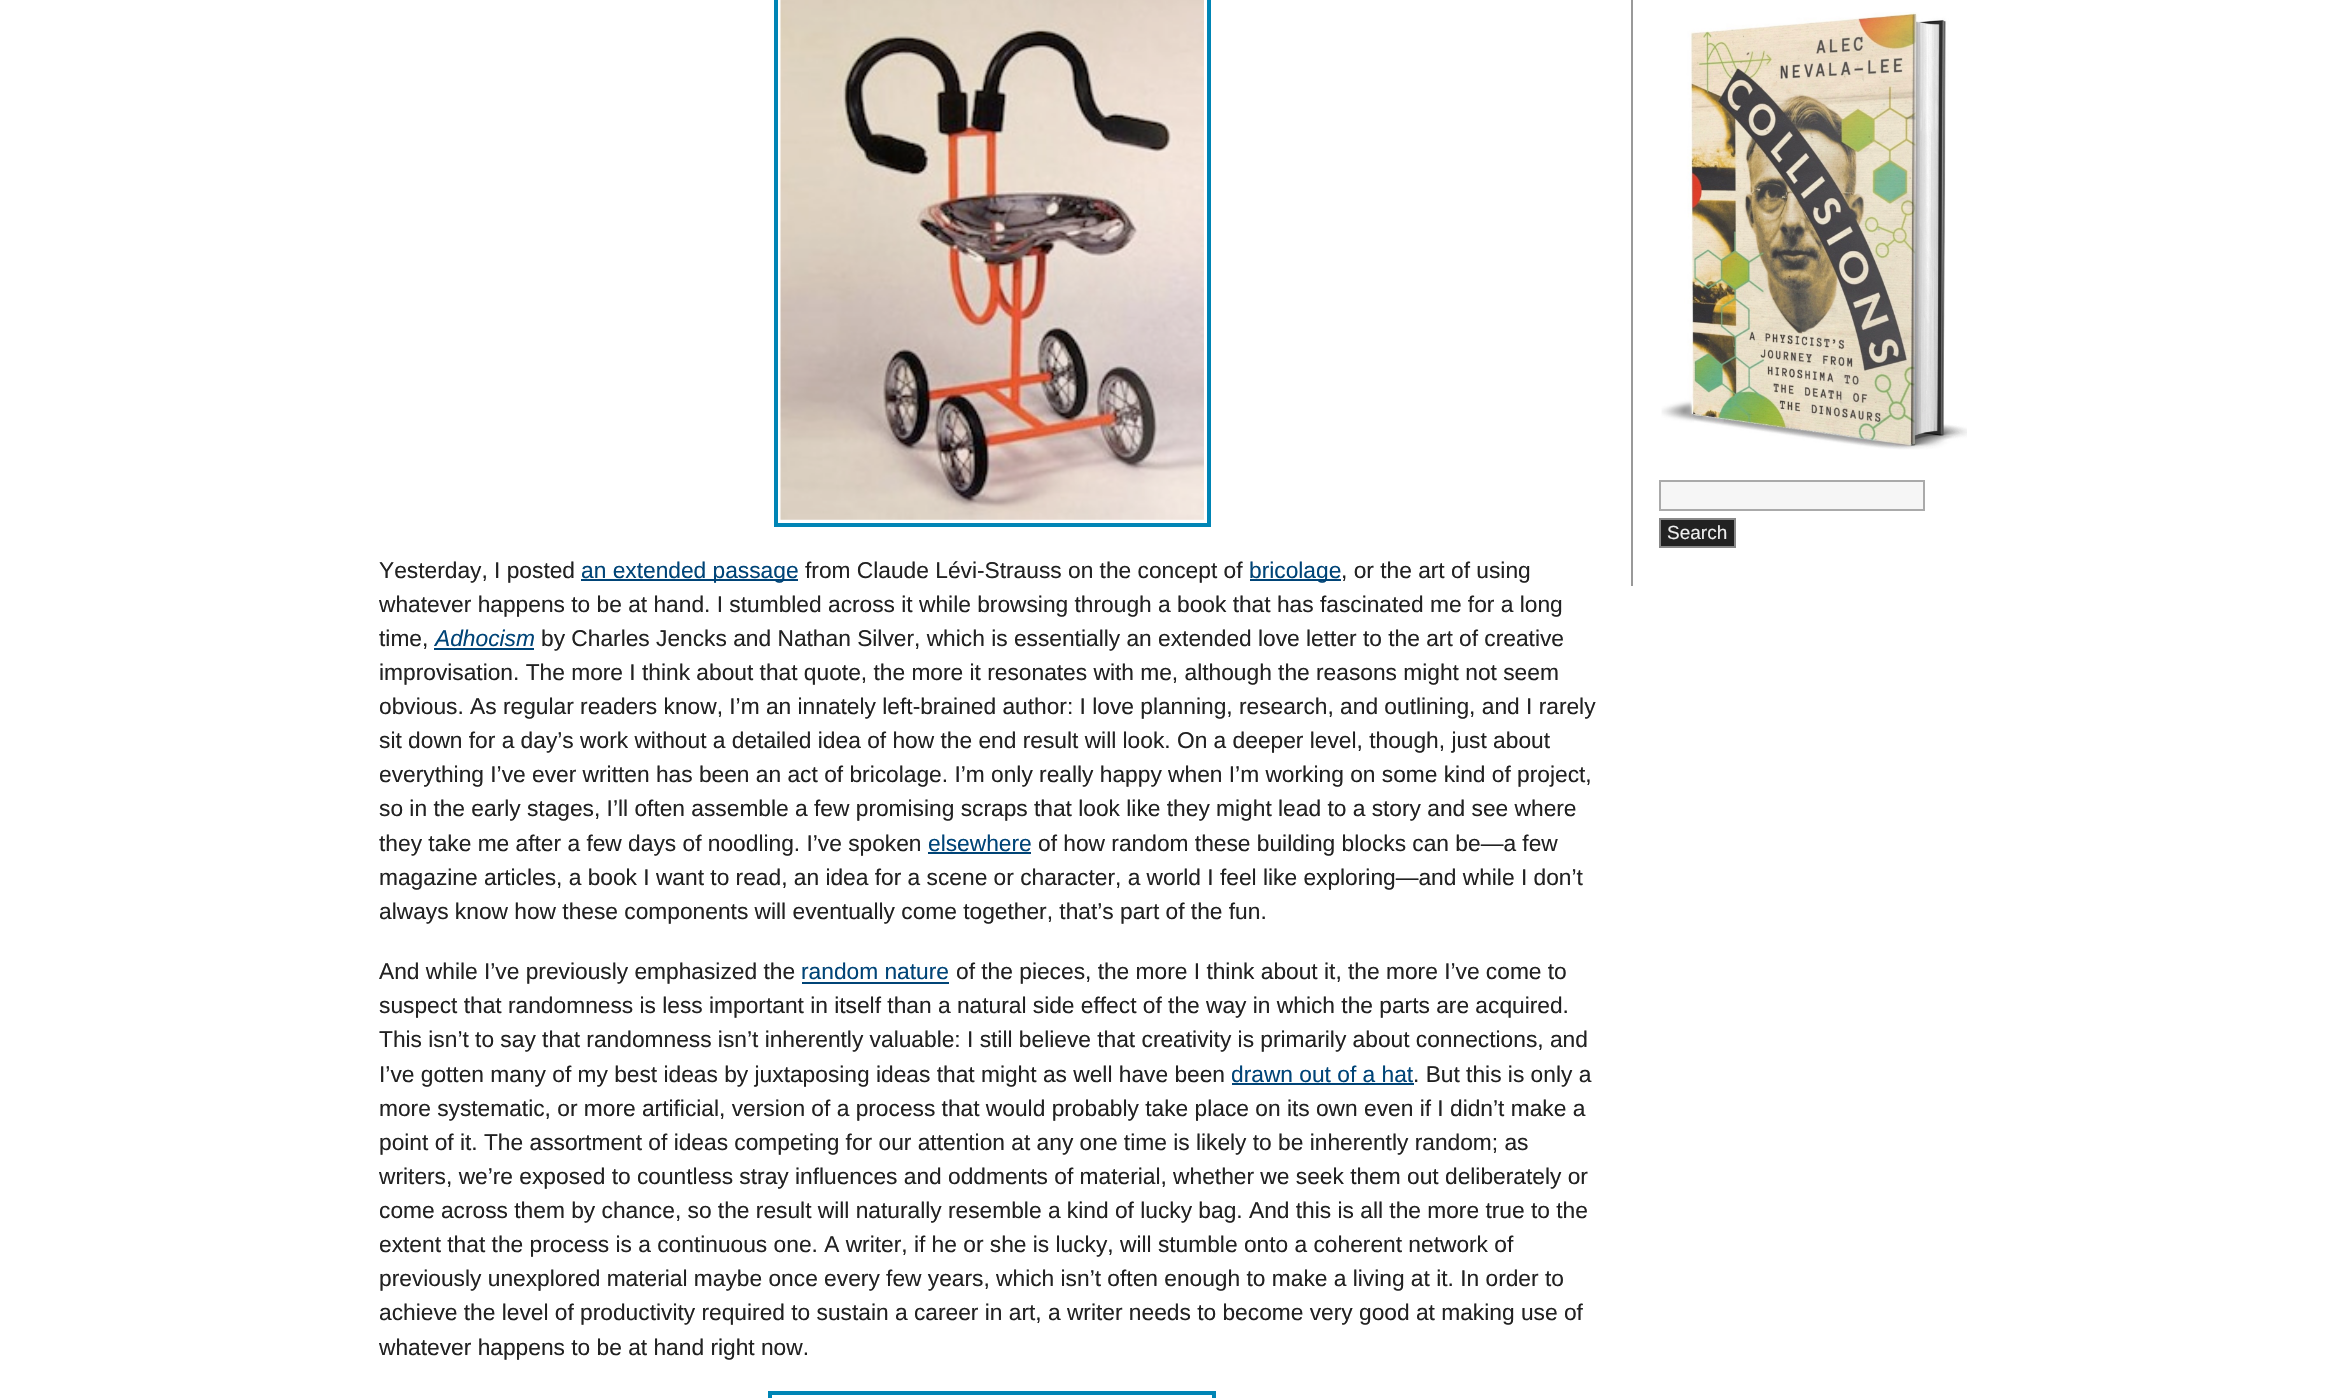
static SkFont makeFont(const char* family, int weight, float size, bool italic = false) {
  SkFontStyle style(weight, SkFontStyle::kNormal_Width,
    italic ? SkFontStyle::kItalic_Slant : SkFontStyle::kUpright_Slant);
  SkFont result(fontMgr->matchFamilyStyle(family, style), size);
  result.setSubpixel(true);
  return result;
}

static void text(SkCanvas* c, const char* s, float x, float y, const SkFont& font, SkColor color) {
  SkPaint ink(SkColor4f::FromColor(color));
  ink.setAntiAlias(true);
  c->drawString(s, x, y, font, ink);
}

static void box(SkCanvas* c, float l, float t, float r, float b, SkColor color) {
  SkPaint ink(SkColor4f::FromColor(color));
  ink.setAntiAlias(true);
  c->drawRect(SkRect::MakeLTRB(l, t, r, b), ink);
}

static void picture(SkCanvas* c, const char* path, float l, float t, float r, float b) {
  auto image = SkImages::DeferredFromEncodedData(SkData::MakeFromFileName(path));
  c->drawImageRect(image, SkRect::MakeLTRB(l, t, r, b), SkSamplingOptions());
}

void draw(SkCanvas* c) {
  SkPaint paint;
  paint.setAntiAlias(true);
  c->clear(0xffffffff);
  box(c, 1631, 0, 1633, 586, 0xff999999);
  picture(c, "img_01.png", 1661, 12, 1967, 450);
  paint.setColor(0xfff6f6f6);
  c->drawRect(SkRect::MakeLTRB(1660, 481, 1924, 510), paint);
  paint.setStyle(SkPaint::kStroke_Style);
  paint.setStrokeWidth(2);
  paint.setColor(0xffaaaaaa);
  c->drawRect(SkRect::MakeLTRB(1660, 481, 1924, 510), paint);
  paint.setStyle(SkPaint::kFill_Style);
  paint.setColor(0xff222222);
  c->drawRect(SkRect::MakeLTRB(1660, 519, 1735, 547), paint);
  paint.setStyle(SkPaint::kStroke_Style);
  paint.setColor(0xff888888);
  c->drawRect(SkRect::MakeLTRB(1660, 519, 1735, 547), paint);
  SkFont face1 = makeFont("Liberation Sans", 400, 19);
  text(c, "Search", 1667, 539, face1, 0xffeeeeee);
  paint.setStrokeWidth(4);
  paint.setColor(0xff0085b5);
  c->drawRect(SkRect::MakeLTRB(776, -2, 1209, 525), paint);
  picture(c, "img_02.png", 780, 0, 1204, 520);
  SkFont face2 = makeFont("Liberation Sans", 400, 22.75f);
  text(c, "Yesterday, I posted", 379, 578, face2, 0xff222222);
  box(c, 581, 579, 798, 581, 0xff004477);
  text(c, "an extended passage", 581, 578, face2, 0xff004477);
  text(c, "from Claude Lévi-Strauss on the concept of", 805, 578, face2, 0xff222222);
  box(c, 1250, 579, 1341, 581, 0xff004477);
  text(c, "bricolage", 1249, 578, face2, 0xff004477);
  text(c, ", or the art of using", 1341, 578, face2, 0xff222222);
  text(c, "whatever happens to be at hand. I stumbled across it while browsing through a book that has fascinated me for a long", 379, 612, face2, 0xff222222);
  text(c, "time,", 379, 646, face2, 0xff222222);
  SkFont face3 = makeFont("Liberation Sans", 400, 22.75f, true);
  text(c, "Adhocism", 435, 646, face3, 0xff004477);
  box(c, 434, 648, 534, 650, 0xff004477);
  text(c, "by Charles Jencks and Nathan Silver, which is essentially an extended love letter to the art of creative", 541, 646, face2, 0xff222222);
  text(c, "improvisation. The more I think about that quote, the more it resonates with me, although the reasons might not seem", 379, 680, face2, 0xff222222);
  text(c, "obvious. As regular readers know, I’m an innately left-brained author: I love planning, research, and outlining, and I rarely", 379, 714, face2, 0xff222222);
  text(c, "sit down for a day’s work without a detailed idea of how the end result will look. On a deeper level, though, just about", 379, 748, face2, 0xff222222);
  text(c, "everything I’ve ever written has been an act of bricolage. I’m only really happy when I’m working on some kind of project,", 379, 782, face2, 0xff222222);
  text(c, "so in the early stages, I’ll often assemble a few promising scraps that look like they might lead to a story and see where", 379, 816, face2, 0xff222222);
  text(c, "they take me after a few days of noodling. I’ve spoken", 379, 851, face2, 0xff222222);
  text(c, "elsewhere", 928, 851, face2, 0xff004477);
  box(c, 928, 852, 1031, 854, 0xff004477);
  text(c, "of how random these building blocks can be—a few", 1038, 851, face2, 0xff222222);
  text(c, "magazine articles, a book I want to read, an idea for a scene or character, a world I feel like exploring—and while I don’t", 379, 885, face2, 0xff222222);
  text(c, "always know how these components will eventually come together, that’s part of the fun.", 379, 919, face2, 0xff222222);
  text(c, "And while I’ve previously emphasized the", 379, 979, face2, 0xff222222);
  text(c, "random nature", 801, 979, face2, 0xff004477);
  box(c, 802, 982, 949, 984, 0xff004477);
  text(c, "of the pieces, the more I think about it, the more I’ve come to", 956, 979, face2, 0xff222222);
  text(c, "suspect that randomness is less important in itself than a natural side effect of the way in which the parts are acquired.", 379, 1013, face2, 0xff222222);
  text(c, "This isn’t to say that randomness isn’t inherently valuable: I still believe that creativity is primarily about connections, and", 379, 1047, face2, 0xff222222);
  text(c, "I’ve gotten many of my best ideas by juxtaposing ideas that might as well have been", 379, 1082, face2, 0xff222222);
  text(c, "drawn out of a hat", 1231, 1082, face2, 0xff004477);
  box(c, 1232, 1083, 1414, 1085, 0xff004477);
  text(c, ". But this is only a", 1413, 1082, face2, 0xff222222);
  text(c, "more systematic, or more artificial, version of a process that would probably take place on its own even if I didn’t make a", 379, 1116, face2, 0xff222222);
  text(c, "point of it. The assortment of ideas competing for our attention at any one time is likely to be inherently random; as", 379, 1150, face2, 0xff222222);
  text(c, "writers, we’re exposed to countless stray influences and oddments of material, whether we seek them out deliberately or", 379, 1184, face2, 0xff222222);
  text(c, "come across them by chance, so the result will naturally resemble a kind of lucky bag. And this is all the more true to the", 379, 1218, face2, 0xff222222);
  text(c, "extent that the process is a continuous one. A writer, if he or she is lucky, will stumble onto a coherent network of", 379, 1252, face2, 0xff222222);
  text(c, "previously unexplored material maybe once every few years, which isn’t often enough to make a living at it. In order to", 379, 1286, face2, 0xff222222);
  text(c, "achieve the level of productivity required to sustain a career in art, a writer needs to become very good at making use of", 379, 1320, face2, 0xff222222);
  text(c, "whatever happens to be at hand right now.", 379, 1355, face2, 0xff222222);
  c->drawRect(SkRect::MakeLTRB(770, 1393, 1214, 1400), paint);
}
